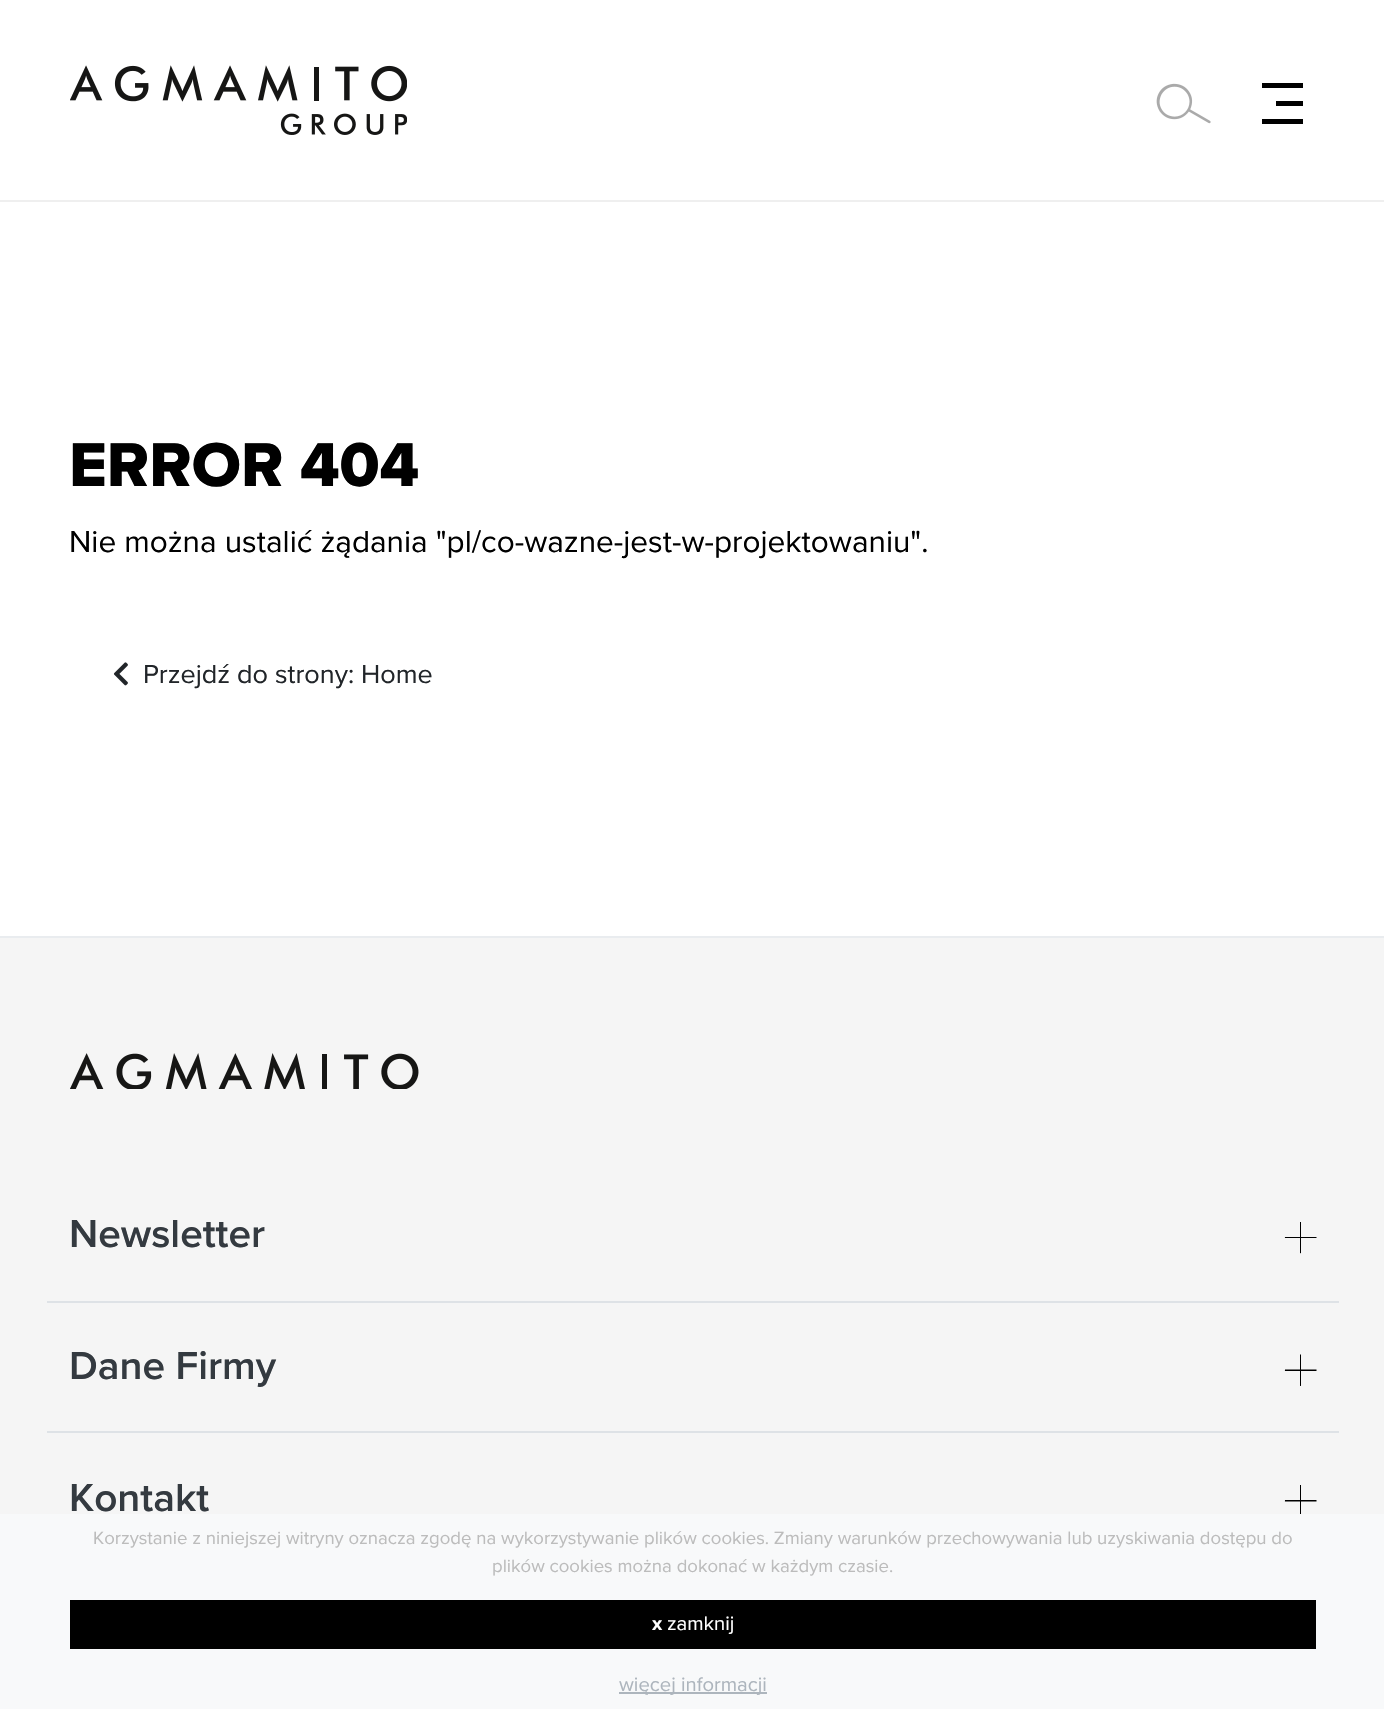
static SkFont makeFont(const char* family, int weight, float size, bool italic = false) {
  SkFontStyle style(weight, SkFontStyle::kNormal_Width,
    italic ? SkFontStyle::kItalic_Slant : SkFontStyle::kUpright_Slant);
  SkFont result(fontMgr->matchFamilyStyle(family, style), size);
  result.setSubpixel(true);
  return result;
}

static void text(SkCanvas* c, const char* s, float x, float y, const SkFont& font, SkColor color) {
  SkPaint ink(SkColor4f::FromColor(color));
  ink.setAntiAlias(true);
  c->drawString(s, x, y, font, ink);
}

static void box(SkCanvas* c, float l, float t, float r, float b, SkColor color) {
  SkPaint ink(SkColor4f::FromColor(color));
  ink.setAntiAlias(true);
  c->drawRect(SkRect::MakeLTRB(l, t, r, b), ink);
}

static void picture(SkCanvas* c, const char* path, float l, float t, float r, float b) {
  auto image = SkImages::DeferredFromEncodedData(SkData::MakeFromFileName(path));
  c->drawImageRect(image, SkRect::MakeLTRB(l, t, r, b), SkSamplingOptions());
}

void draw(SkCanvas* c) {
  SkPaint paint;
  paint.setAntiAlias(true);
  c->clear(0xffffffff);
  box(c, 0, 200, 1384, 202, 0xffefefef);
  picture(c, "img_01.png", 70, 65, 407, 135);
  picture(c, "img_02.png", 1156, 83, 1211, 124);
  box(c, 1262, 83, 1303, 88, 0xff000000);
  box(c, 1276, 101, 1303, 106, 0xff000000);
  box(c, 1262, 119, 1303, 124, 0xff000000);
  SkFont face1 = makeFont("Proxima Nova", 800, 64.25f);
  text(c, "ERROR 404", 69, 486, face1, 0xff000000);
  SkFont face2 = makeFont("Proxima Nova", 400, 31.5f);
  text(c, "Nie można ustalić żądania \"pl/co-wazne-jest-w-projektowaniu\".", 69, 552, face2, 0xff000000);
  picture(c, "img_03.png", 113, 662, 128, 686);
  SkFont face3 = makeFont("Proxima Nova", 400, 27);
  text(c, "Przejdź do strony: Home", 143, 683, face3, 0xff212529);
  box(c, 0, 938, 1384, 1514, 0xfff5f5f5);
  box(c, 0, 936, 1384, 938, 0xffe9ecef);
  picture(c, "img_04.png", 70, 1053, 419, 1089);
  box(c, 47, 1301, 1339, 1303, 0xffdee2e6);
  SkFont face4 = makeFont("Proxima Nova", 600, 40.5f);
  text(c, "Newsletter", 69, 1247, face4, 0xff343a40);
  paint.setColor(0xff000000);
  c->drawPath(SkPathBuilder().moveTo(1300, 1222).lineTo(1300, 1253).cubicTo(1300.5f, 1253.5f, 1301, 1253.5f, 1301, 1252.5f).lineTo(1301, 1222).close().moveTo(1316.5f, 1237).lineTo(1285, 1237).cubicTo(1285, 1237.5f, 1284.5f, 1238, 1285.5f, 1238).lineTo(1316.5f, 1238).close().detach(), paint);
  box(c, 47, 1431, 1339, 1433, 0xffdee2e6);
  text(c, "Dane Firmy", 69, 1379, face4, 0xff343a40);
  c->drawPath(SkPathBuilder().moveTo(1300, 1354.5f).lineTo(1300, 1386).cubicTo(1300.5f, 1386, 1301, 1386, 1301, 1385.5f).lineTo(1301, 1354.5f).close().moveTo(1316.5f, 1369.5f).lineTo(1285, 1369.5f).cubicTo(1285, 1370.5f, 1284.5f, 1371, 1285.5f, 1371).lineTo(1316.5f, 1371).close().detach(), paint);
  text(c, "Kontakt", 69, 1511, face4, 0xff343a40);
  c->drawPath(SkPathBuilder().moveTo(1300, 1485).lineTo(1300, 1516.5f).cubicTo(1300.5f, 1516.5f, 1301, 1516.5f, 1301, 1516).lineTo(1301, 1485).close().moveTo(1316.5f, 1500).lineTo(1285, 1500).cubicTo(1285, 1501, 1284.5f, 1501.5f, 1285.5f, 1501.5f).lineTo(1316.5f, 1501.5f).close().detach(), paint);
  box(c, 0, 1514, 1384, 1709, 0xfff8f9fa);
  SkFont face5 = makeFont("Proxima Nova", 400, 18.55f);
  text(c, "Korzystanie z niniejszej witryny oznacza zgodę na wykorzystywanie plików cookies. Zmiany warunków przechowywania lub uzyskiwania dostępu do", 93, 1544, face5, 0xffbcbcbc);
  text(c, "plików cookies można dokonać w każdym czasie.", 492, 1572, face5, 0xffbcbcbc);
  box(c, 70, 1600, 1316, 1649, 0xff000000);
  SkFont face6 = makeFont("Proxima Nova", 700, 20.25f);
  text(c, "x", 652, 1630, face6, 0xffffffff);
  SkFont face7 = makeFont("Proxima Nova", 400, 20.25f);
  text(c, "zamknij", 667, 1630, face7, 0xffffffff);
  box(c, 619, 1692, 767, 1694, 0xffadb5bd);
  text(c, "więcej informacji", 619, 1691, face7, 0xffadb5bd);
}
